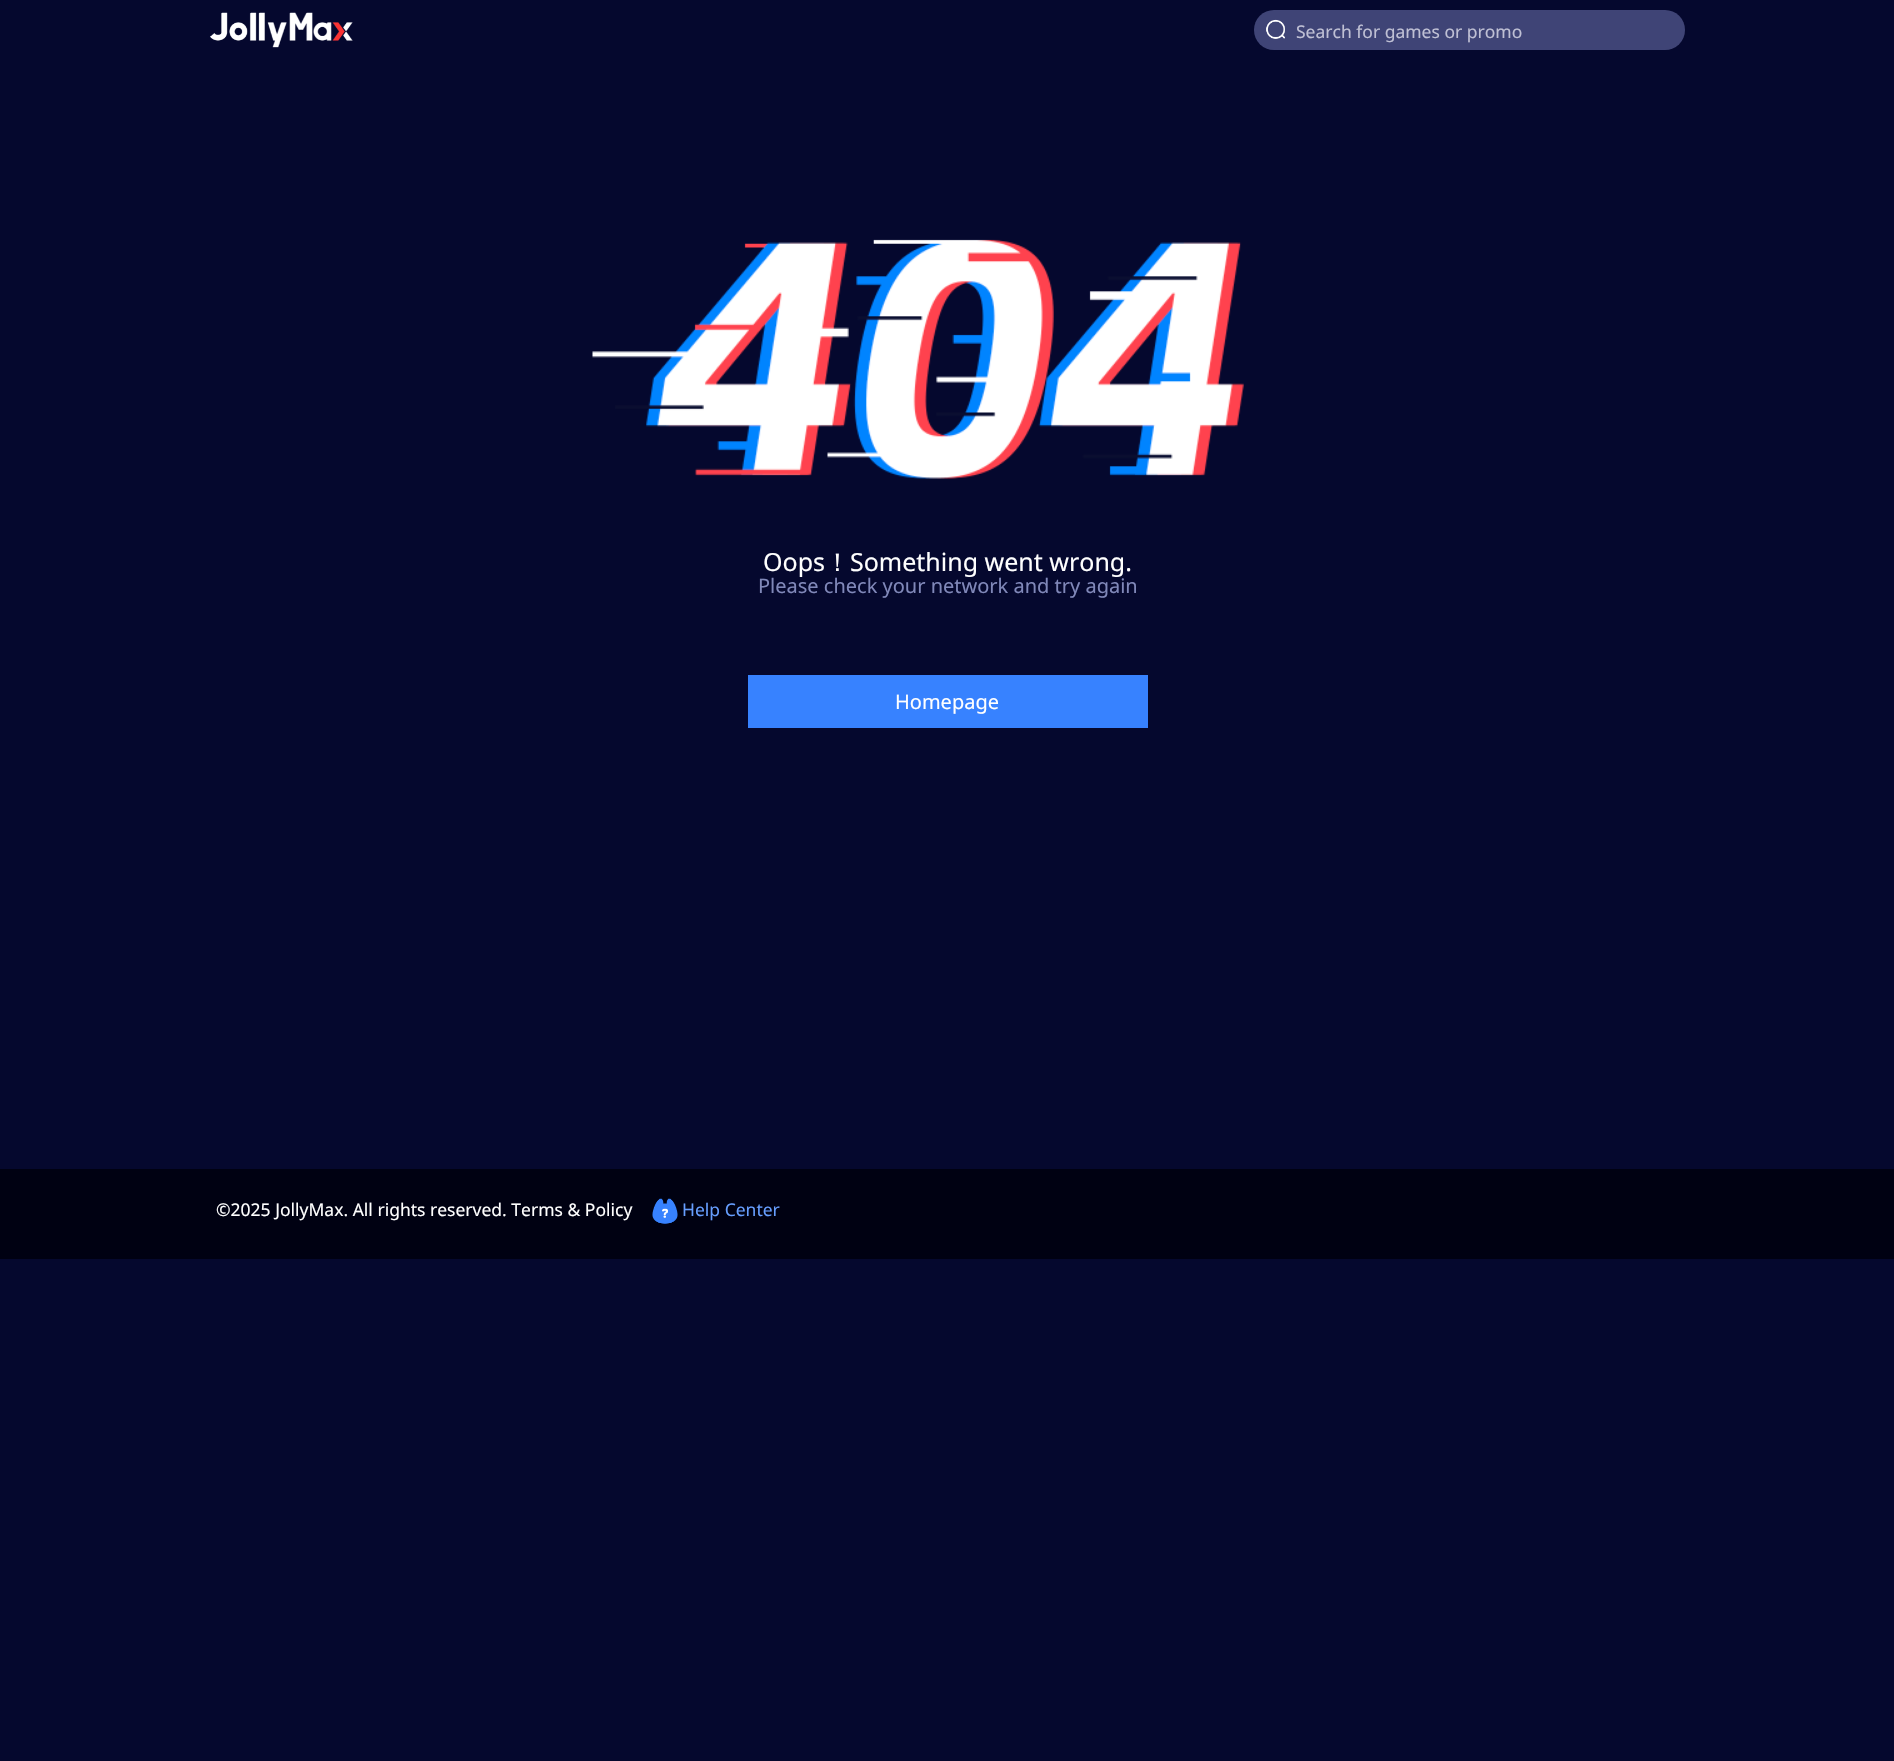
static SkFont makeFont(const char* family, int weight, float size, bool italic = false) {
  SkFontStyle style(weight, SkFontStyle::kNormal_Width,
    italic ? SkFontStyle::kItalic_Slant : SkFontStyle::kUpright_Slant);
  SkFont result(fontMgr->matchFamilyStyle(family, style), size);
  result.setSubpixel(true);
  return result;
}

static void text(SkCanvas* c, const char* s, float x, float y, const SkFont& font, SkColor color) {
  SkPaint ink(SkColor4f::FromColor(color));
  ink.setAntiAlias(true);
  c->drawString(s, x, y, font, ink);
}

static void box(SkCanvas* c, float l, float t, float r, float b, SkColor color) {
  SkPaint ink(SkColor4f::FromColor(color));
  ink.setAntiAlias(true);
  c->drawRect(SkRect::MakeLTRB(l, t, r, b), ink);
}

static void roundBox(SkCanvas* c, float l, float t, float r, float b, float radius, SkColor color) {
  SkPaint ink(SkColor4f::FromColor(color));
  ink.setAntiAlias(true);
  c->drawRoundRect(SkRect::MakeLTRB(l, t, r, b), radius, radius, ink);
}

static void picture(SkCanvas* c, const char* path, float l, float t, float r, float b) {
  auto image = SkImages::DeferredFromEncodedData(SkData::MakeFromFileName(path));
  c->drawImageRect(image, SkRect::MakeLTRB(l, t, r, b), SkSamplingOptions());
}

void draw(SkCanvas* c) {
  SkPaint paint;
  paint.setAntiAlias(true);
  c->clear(0xff05082e);
  picture(c, "img_01.png", 210, 12, 353, 48);
  roundBox(c, 1254, 10, 1685, 50, 20, 0xff3f4476);
  picture(c, "img_02.png", 1266, 19, 1285, 39);
  SkFont face1 = makeFont("Noto Sans", 400, 17.5f);
  text(c, "Search for games or promo", 1296, 38, face1, 0xffbfc0d4);
  picture(c, "img_03.png", 592, 239, 1244, 479);
  SkFont face2 = makeFont("Noto Sans", 400, 25);
  text(c, "Oops", 763, 571, face2, 0xffffffff);
  SkFont face3 = makeFont("WenQuanYi Zen Hei", 500, 25);
  text(c, "！", 825, 571, face3, 0xffffffff);
  text(c, "Something went wrong.", 850, 571, face2, 0xffffffff);
  SkFont face4 = makeFont("Noto Sans", 400, 20);
  text(c, "Please check your network and try again", 758, 593, face4, 0xff8088b9);
  box(c, 748, 675, 1148, 728, 0xff3782ff);
  text(c, "Homepage", 895, 709, face4, 0xffffffff);
  box(c, 0, 1169, 1894, 1259, 0xff000112);
  text(c, "©2025 JollyMax. All rights reserved. Terms & Policy", 216, 1216, face1, 0xffffffff);
  picture(c, "img_04.png", 652, 1198, 678, 1224);
  text(c, "Help Center", 682, 1216, face1, 0xff669eff);
}
